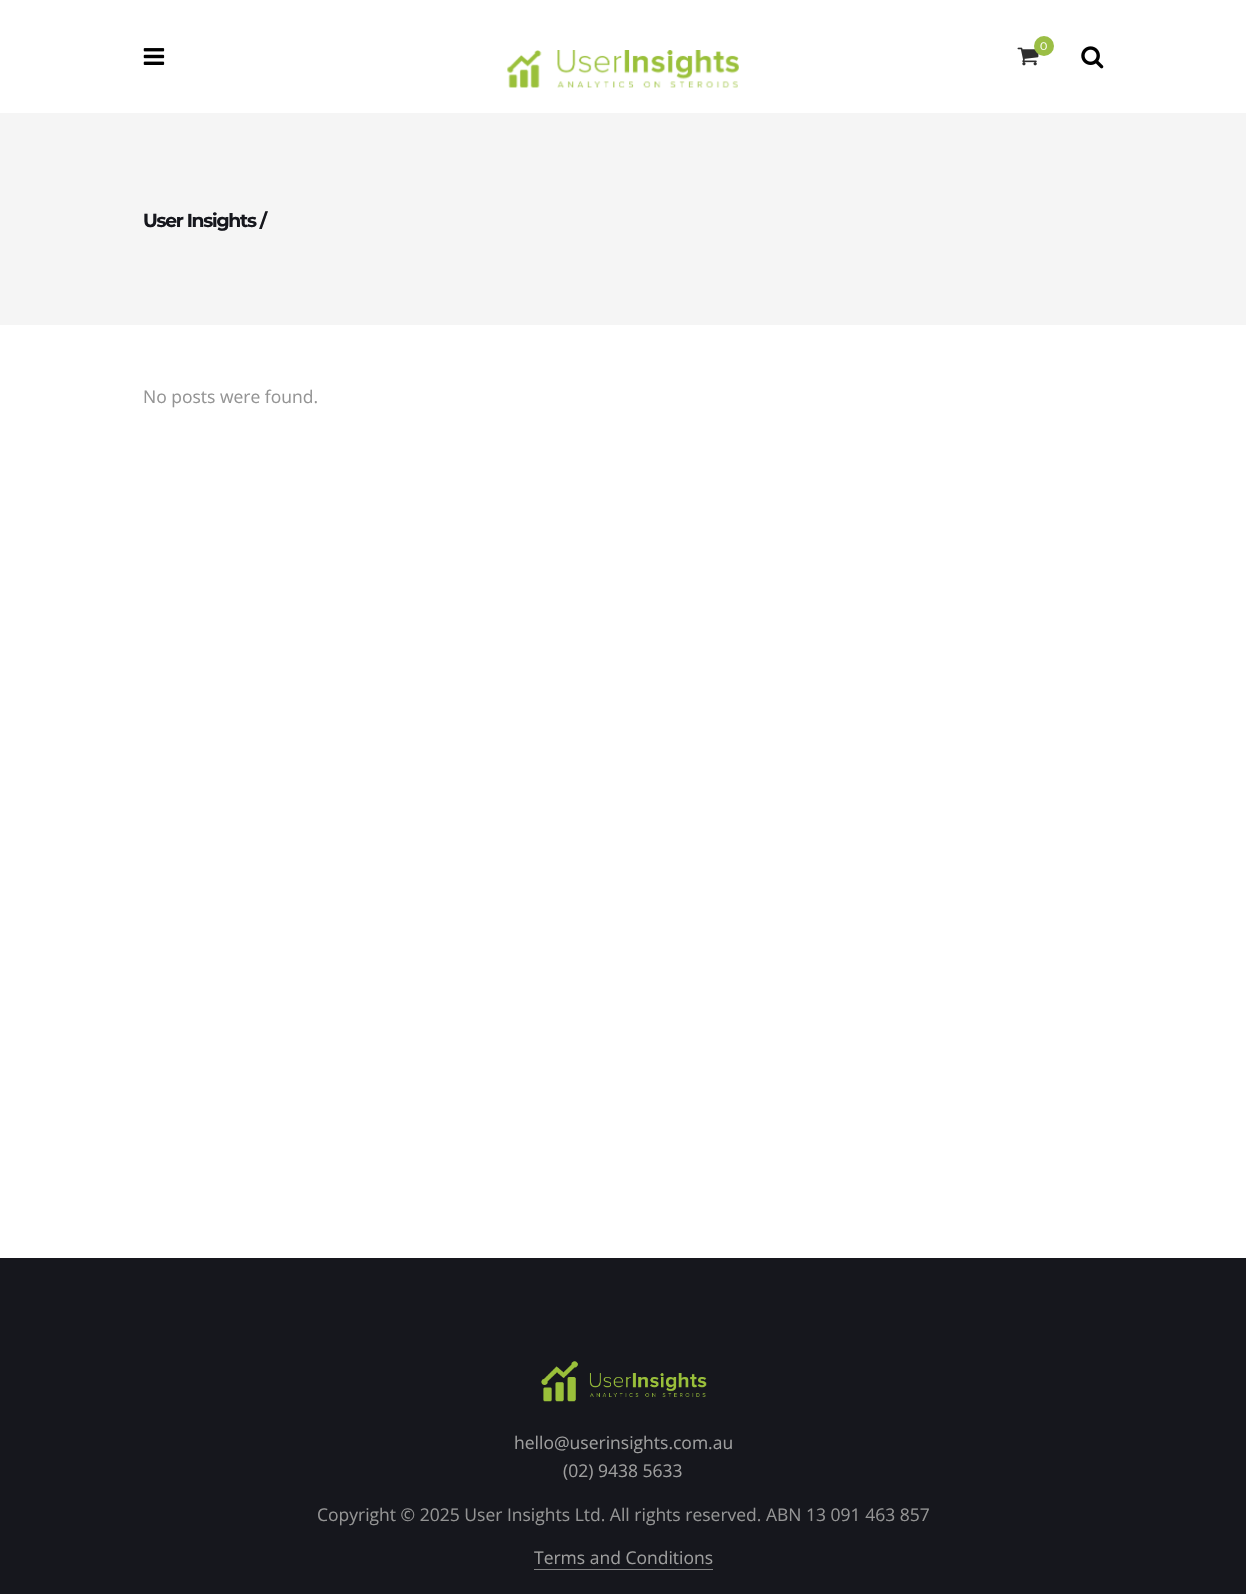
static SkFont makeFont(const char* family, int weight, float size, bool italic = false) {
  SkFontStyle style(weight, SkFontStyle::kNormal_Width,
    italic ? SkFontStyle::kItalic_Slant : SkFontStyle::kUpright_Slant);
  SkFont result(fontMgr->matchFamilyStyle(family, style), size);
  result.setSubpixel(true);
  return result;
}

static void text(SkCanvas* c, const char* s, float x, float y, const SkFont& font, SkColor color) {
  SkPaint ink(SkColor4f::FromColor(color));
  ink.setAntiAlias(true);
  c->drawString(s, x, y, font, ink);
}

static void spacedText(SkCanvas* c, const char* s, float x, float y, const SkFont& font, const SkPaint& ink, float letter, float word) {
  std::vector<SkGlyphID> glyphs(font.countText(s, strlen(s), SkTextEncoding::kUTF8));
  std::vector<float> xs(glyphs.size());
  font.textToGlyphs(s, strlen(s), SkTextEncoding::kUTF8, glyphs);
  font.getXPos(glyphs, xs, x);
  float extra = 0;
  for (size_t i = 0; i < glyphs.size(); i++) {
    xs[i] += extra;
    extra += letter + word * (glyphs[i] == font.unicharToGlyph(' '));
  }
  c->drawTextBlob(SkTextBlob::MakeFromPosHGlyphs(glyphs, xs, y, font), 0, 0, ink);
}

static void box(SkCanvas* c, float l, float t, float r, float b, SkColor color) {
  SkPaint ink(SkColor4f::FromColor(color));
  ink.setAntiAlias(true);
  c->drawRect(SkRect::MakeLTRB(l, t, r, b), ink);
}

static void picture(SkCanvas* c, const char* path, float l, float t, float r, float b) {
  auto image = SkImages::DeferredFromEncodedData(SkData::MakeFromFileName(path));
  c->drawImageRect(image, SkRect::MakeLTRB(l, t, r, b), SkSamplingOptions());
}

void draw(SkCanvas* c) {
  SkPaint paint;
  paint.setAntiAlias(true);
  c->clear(0xffffffff);
  picture(c, "img_01.png", 1017, 47, 1039, 66);
  paint.setColor(0xff9bbe45);
  c->drawCircle(1044, 46, 10, paint);
  SkFont face1 = makeFont("Montserrat", 400, 11);
  text(c, "0", 1040, 50, face1, 0xffffffff);
  picture(c, "img_02.png", 1081, 46, 1104, 69);
  picture(c, "img_03.png", 143, 48, 165, 65);
  picture(c, "img_04.png", 507, 50, 739, 88);
  box(c, 0, 113, 1246, 325, 0xfff5f5f5);
  SkFont face2 = makeFont("Montserrat", 700, 18.75f);
  paint.setColor(0xff16171d);
  spacedText(c, "User Insights /", 143, 227, face2, paint, -1.25f, 0);
  SkFont face3 = makeFont("Open Sans", 400, 17.5f);
  text(c, "No posts were found.", 143, 403, face3, 0xff949494);
  box(c, 0, 1258, 1246, 1594, 0xff16171d);
  picture(c, "img_05.png", 541, 1361, 707, 1402);
  text(c, "hello@userinsights.com.au", 514, 1449, face3, 0xff9e9e9e);
  text(c, "(02) 9438 5633", 563, 1477, face3, 0xff9e9e9e);
  text(c, "Copyright © 2025 User Insights Ltd. All rights reserved. ABN 13 091 463 857", 317, 1521, face3, 0xff949494);
  text(c, "Terms and Conditions", 534, 1564, face3, 0xff9e9e9e);
  box(c, 534, 1569, 713, 1570, 0xff848485);
}
